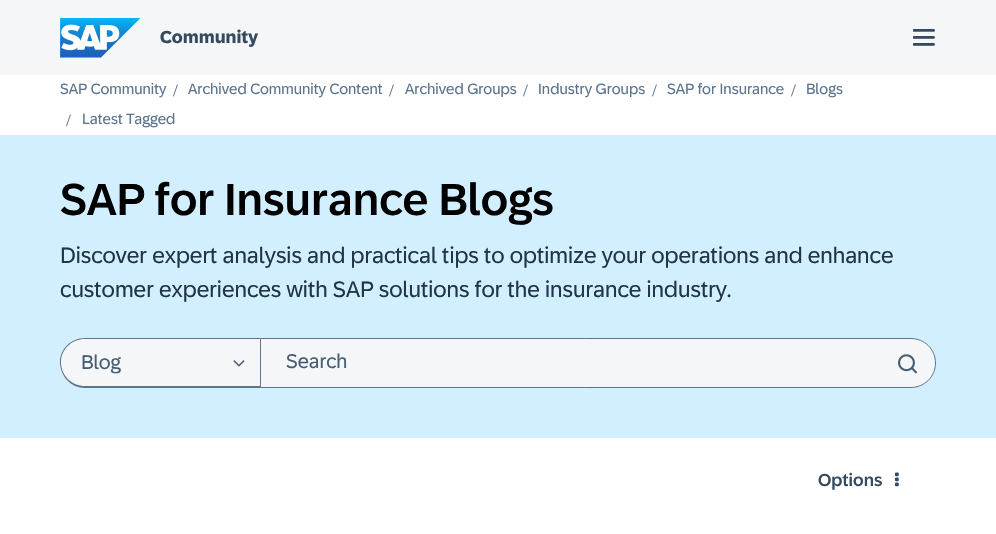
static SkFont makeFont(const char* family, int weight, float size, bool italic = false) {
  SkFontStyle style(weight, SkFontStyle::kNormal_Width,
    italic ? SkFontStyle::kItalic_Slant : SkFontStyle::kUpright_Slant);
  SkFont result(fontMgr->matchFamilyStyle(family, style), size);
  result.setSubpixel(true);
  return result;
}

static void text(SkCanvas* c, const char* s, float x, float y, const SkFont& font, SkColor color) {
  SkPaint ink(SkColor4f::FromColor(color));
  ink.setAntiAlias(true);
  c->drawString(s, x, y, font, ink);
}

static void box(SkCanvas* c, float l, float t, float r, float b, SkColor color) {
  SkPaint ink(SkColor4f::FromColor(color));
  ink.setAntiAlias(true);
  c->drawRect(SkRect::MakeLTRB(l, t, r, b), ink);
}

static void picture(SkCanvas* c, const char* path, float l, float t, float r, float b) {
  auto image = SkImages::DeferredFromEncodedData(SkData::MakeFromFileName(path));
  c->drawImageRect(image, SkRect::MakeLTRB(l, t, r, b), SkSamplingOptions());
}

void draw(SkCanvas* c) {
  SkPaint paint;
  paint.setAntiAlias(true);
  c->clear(0xffffffff);
  box(c, 0, 0, 996, 75, 0xfff5f6f7);
  picture(c, "img_01.png", 60, 18, 140, 58);
  SkFont face1 = makeFont("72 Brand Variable", 700, 17.5f);
  text(c, "Community", 160, 43, face1, 0xff354a5f);
  picture(c, "img_02.png", 913, 29, 935, 46);
  SkFont face2 = makeFont("72 Brand Variable", 400, 15);
  text(c, "SAP Community", 60, 94, face2, 0xff5b738b);
  SkFont face3 = makeFont("Liberation Serif", 400, 17.5f);
  text(c, "/", 173, 96, face3, 0xff5b738b);
  text(c, "Archived Community Content", 188, 94, face2, 0xff5b738b);
  text(c, "/", 389, 96, face3, 0xff5b738b);
  text(c, "Archived Groups", 405, 94, face2, 0xff5b738b);
  text(c, "/", 523, 96, face3, 0xff5b738b);
  text(c, "Industry Groups", 538, 94, face2, 0xff5b738b);
  text(c, "/", 652, 96, face3, 0xff5b738b);
  text(c, "SAP for Insurance", 667, 94, face2, 0xff5b738b);
  text(c, "/", 791, 96, face3, 0xff5b738b);
  text(c, "Blogs", 806, 94, face2, 0xff5b738b);
  text(c, "/", 66, 126, face3, 0xff5b738b);
  text(c, "Latest Tagged", 82, 124, face2, 0xff5b738b);
  box(c, 0, 135, 996, 438, 0xffd1efff);
  SkFont face4 = makeFont("72 Brand Variable", 500, 45);
  text(c, "SAP for Insurance Blogs", 60, 215, face4, 0xff000000);
  SkFont face5 = makeFont("72 Brand Variable", 400, 22.5f);
  text(c, "Discover expert analysis and practical tips to optimize your operations and enhance", 60, 263, face5, 0xff223548);
  text(c, "customer experiences with SAP solutions for the insurance industry.", 60, 297, face5, 0xff223548);
  paint.setColor(0xfff5f6f7);
  c->drawPath(SkPathBuilder().moveTo(85, 338).lineTo(260, 338).lineTo(260, 388).lineTo(85, 388).cubicTo(71, 388, 60, 377, 60, 363).cubicTo(60, 349, 71, 338, 85, 338).close().detach(), paint);
  paint.setColor(0xff5b738b);
  c->drawPath(SkPathBuilder(SkPathFillType::kEvenOdd).moveTo(85, 338).lineTo(260, 338).lineTo(260, 388).lineTo(85, 388).cubicTo(71, 388, 60, 376, 60, 362).cubicTo(60, 349, 71, 338, 85, 338).close().moveTo(85, 339).lineTo(260, 339).lineTo(260, 386).lineTo(85, 386).cubicTo(72, 386, 61, 376, 61, 362).cubicTo(61, 349, 72, 339, 85, 339).close().detach(), paint);
  SkFont face6 = makeFont("72 Brand Variable", 400, 20);
  text(c, "Blog", 81, 369, face6, 0xff475e75);
  picture(c, "img_03.png", 233, 360, 245, 367);
  paint.setColor(0xfff5f6f7);
  c->drawPath(SkPathBuilder().moveTo(260.5f, 338.5f).lineTo(911, 338.5f).cubicTo(924.5f, 338.5f, 935.5f, 349.5f, 935.5f, 363).cubicTo(935.5f, 376.5f, 924.5f, 387.5f, 911, 387.5f).lineTo(260.5f, 387.5f).close().detach(), paint);
  paint.setStyle(SkPaint::kStroke_Style);
  paint.setStrokeWidth(1);
  paint.setColor(0xff5b738b);
  c->drawPath(SkPathBuilder().moveTo(260.5f, 338.5f).lineTo(911, 338.5f).cubicTo(924.5f, 338.5f, 935.5f, 349.5f, 935.5f, 363).cubicTo(935.5f, 376.5f, 924.5f, 387.5f, 911, 387.5f).lineTo(260.5f, 387.5f).close().detach(), paint);
  text(c, "Search", 286, 368, face6, 0xff475e75);
  picture(c, "img_04.png", 898, 354, 917, 374);
  SkFont face7 = makeFont("72 Brand Variable", 500, 17.5f);
  text(c, "Options", 818, 486, face7, 0xff354a5f);
  picture(c, "img_05.png", 895, 472, 899, 487);
}
